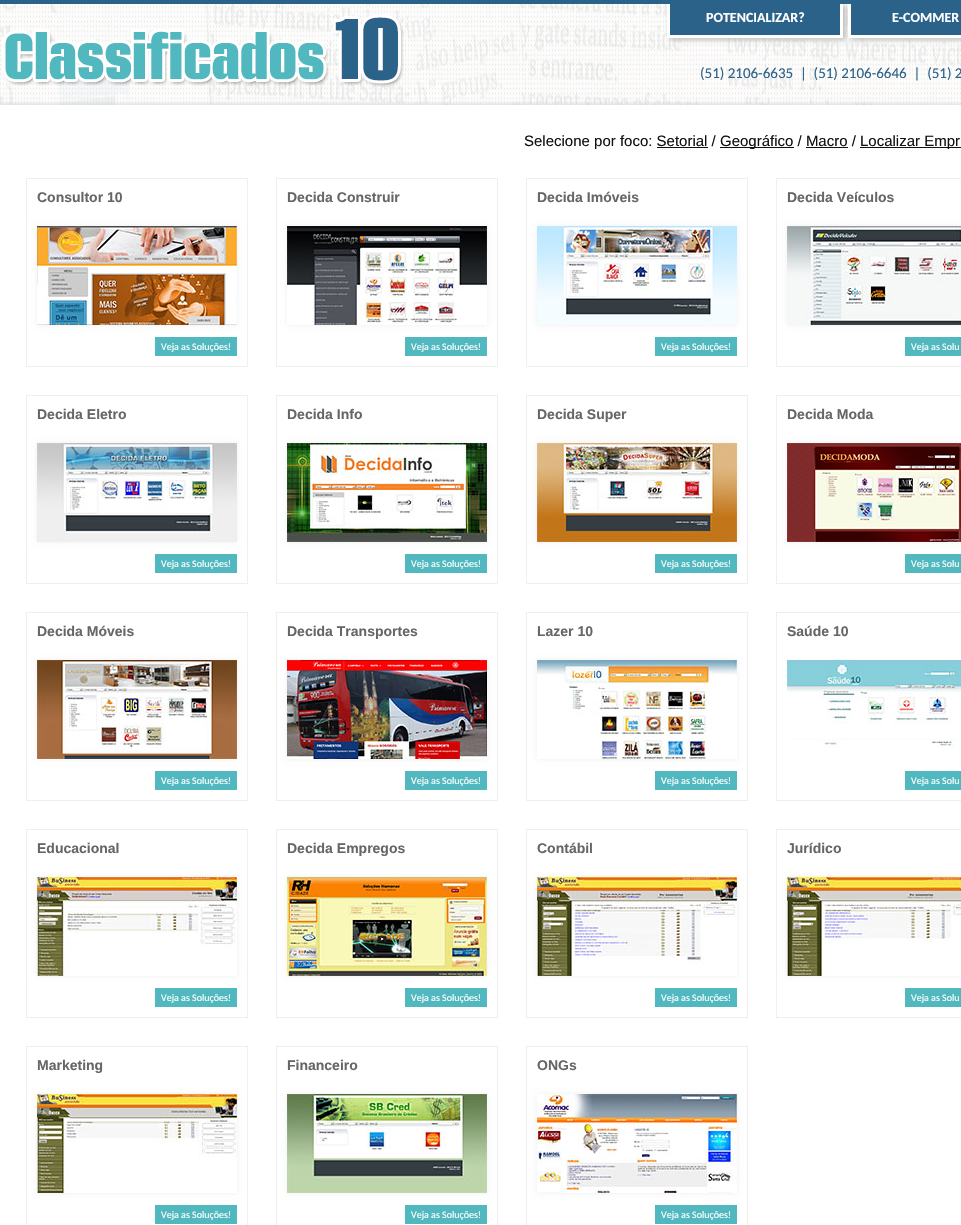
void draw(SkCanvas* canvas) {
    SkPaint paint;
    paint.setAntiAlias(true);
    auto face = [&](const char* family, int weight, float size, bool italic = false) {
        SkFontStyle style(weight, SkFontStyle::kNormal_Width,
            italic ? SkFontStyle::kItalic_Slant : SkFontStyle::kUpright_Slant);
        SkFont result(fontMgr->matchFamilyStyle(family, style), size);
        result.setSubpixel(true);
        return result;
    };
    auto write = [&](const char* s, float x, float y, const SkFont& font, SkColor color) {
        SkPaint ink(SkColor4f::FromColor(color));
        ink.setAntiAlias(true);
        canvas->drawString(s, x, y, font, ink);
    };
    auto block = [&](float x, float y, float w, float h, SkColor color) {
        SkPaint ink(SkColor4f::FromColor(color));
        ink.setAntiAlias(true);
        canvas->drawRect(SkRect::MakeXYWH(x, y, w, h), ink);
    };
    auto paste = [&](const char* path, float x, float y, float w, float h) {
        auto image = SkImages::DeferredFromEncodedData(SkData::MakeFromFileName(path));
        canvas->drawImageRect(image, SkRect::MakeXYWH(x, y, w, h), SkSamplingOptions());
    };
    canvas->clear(SK_ColorWHITE);
    paste("pic1.png", 0, 4, 961, 101);
    paint.setColor(SkColorSetRGB(191, 189, 189));
    paint.setMaskFilter(SkMaskFilter::MakeBlur(kNormal_SkBlurStyle, 2.5f));
    canvas->drawRect(SkRect::MakeXYWH(670, 5, 176, 35), paint);
    paint.setMaskFilter(nullptr);
    block(840, 3, 3, 35, SK_ColorWHITE);
    block(667, 35, 176, 3, SK_ColorWHITE);
    block(667, 3, 3, 35, SK_ColorWHITE);
    paint.setMaskFilter(SkMaskFilter::MakeBlur(kNormal_SkBlurStyle, 2.5f));
    canvas->drawRect(SkRect::MakeXYWH(851, 5, 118, 35), paint);
    paint.setMaskFilter(nullptr);
    block(848, 35, 113, 3, SK_ColorWHITE);
    block(848, 3, 3, 35, SK_ColorWHITE);
    block(0, 0, 961, 4, SkColorSetRGB(42, 98, 138));
    paste("pic2.png", 2, 15, 402, 72);
    block(670, 4, 170, 31, SkColorSetRGB(42, 98, 138));
    auto kFont1 = face("Carlito", 700, 14);
    write("POTENCIALIZAR?", 706, 22, kFont1, SK_ColorWHITE);
    block(851, 4, 110, 31, SkColorSetRGB(42, 98, 138));
    write("E-COMMER", 892, 22, kFont1, SK_ColorWHITE);
    auto kFont2 = face("Carlito", 400, 15);
    write("(51) 2106-6635  |  (51) 2106-6646  |  (51) 2", 700, 78, kFont2, SkColorSetRGB(42, 98, 138));
    paint.setColor(SkColorSetRGB(204, 204, 204));
    paint.setMaskFilter(SkMaskFilter::MakeBlur(kNormal_SkBlurStyle, 2.5f));
    canvas->drawRect(SkRect::MakeXYWH(0, 105, 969, 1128), paint);
    paint.setMaskFilter(nullptr);
    block(0, 105, 961, 1120, SK_ColorWHITE);
    auto kFont3 = face("Liberation Sans", 400, 15);
    write("Selecione por foco: Setorial /", 524, 146, kFont3, SkColorSetRGB(17, 17, 17));
    block(720, 147, 74, 1, SkColorSetRGB(17, 17, 17));
    write("Geográfico / Macro /", 720, 146, kFont3, SkColorSetRGB(17, 17, 17));
    block(860, 147, 101, 1, SkColorSetRGB(17, 17, 17));
    write("Localizar Empr", 860, 146, kFont3, SkColorSetRGB(17, 17, 17));
    block(657, 147, 51, 1, SkColorSetRGB(17, 17, 17));
    block(806, 147, 42, 1, SkColorSetRGB(17, 17, 17));
    paint.setStyle(SkPaint::kStroke_Style);
    paint.setStrokeWidth(1);
    paint.setColor(SkColorSetRGB(239, 239, 239));
    canvas->drawRect(SkRect::MakeXYWH(26.5f, 178.5f, 221, 188), paint);
    auto kFont4 = face("Liberation Sans", 700, 14);
    write("Consultor 10", 37, 202, kFont4, SkColorSetRGB(102, 102, 102));
    paint.setStyle(SkPaint::kFill_Style);
    paint.setMaskFilter(SkMaskFilter::MakeBlur(kNormal_SkBlurStyle, 2.5f));
    canvas->drawRect(SkRect::MakeXYWH(37, 226, 200, 99), paint);
    paint.setMaskFilter(nullptr);
    paste("pic3.png", 37, 226, 200, 99);
    block(155, 337, 82, 19, SkColorSetRGB(80, 184, 190));
    auto kFont5 = face("Carlito", 400, 10);
    write("Veja as Soluções!", 161, 350, kFont5, SK_ColorWHITE);
    paint.setStyle(SkPaint::kStroke_Style);
    canvas->drawRect(SkRect::MakeXYWH(276.5f, 178.5f, 221, 188), paint);
    write("Decida Construir", 287, 202, kFont4, SkColorSetRGB(102, 102, 102));
    paint.setStyle(SkPaint::kFill_Style);
    paint.setMaskFilter(SkMaskFilter::MakeBlur(kNormal_SkBlurStyle, 2.5f));
    canvas->drawRect(SkRect::MakeXYWH(287, 226, 200, 99), paint);
    paint.setMaskFilter(nullptr);
    paste("pic4.png", 287, 226, 200, 99);
    block(405, 337, 82, 19, SkColorSetRGB(80, 184, 190));
    write("Veja as Soluções!", 411, 350, kFont5, SK_ColorWHITE);
    paint.setStyle(SkPaint::kStroke_Style);
    canvas->drawRect(SkRect::MakeXYWH(526.5f, 178.5f, 221, 188), paint);
    write("Decida Imóveis", 537, 202, kFont4, SkColorSetRGB(102, 102, 102));
    paint.setStyle(SkPaint::kFill_Style);
    paint.setMaskFilter(SkMaskFilter::MakeBlur(kNormal_SkBlurStyle, 2.5f));
    canvas->drawRect(SkRect::MakeXYWH(537, 226, 200, 99), paint);
    paint.setMaskFilter(nullptr);
    paste("pic5.png", 537, 226, 200, 99);
    block(655, 337, 82, 19, SkColorSetRGB(80, 184, 190));
    write("Veja as Soluções!", 661, 350, kFont5, SK_ColorWHITE);
    paint.setStyle(SkPaint::kStroke_Style);
    canvas->drawRect(SkRect::MakeXYWH(776.5f, 178.5f, 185, 188), paint);
    write("Decida Veículos", 787, 202, kFont4, SkColorSetRGB(102, 102, 102));
    paint.setStyle(SkPaint::kFill_Style);
    paint.setMaskFilter(SkMaskFilter::MakeBlur(kNormal_SkBlurStyle, 2.5f));
    canvas->drawRect(SkRect::MakeXYWH(787, 226, 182, 99), paint);
    paint.setMaskFilter(nullptr);
    paste("pic6.png", 787, 226, 174, 99);
    block(905, 337, 56, 19, SkColorSetRGB(80, 184, 190));
    write("Veja as Solu", 911, 350, kFont5, SK_ColorWHITE);
    paint.setStyle(SkPaint::kStroke_Style);
    canvas->drawRect(SkRect::MakeXYWH(26.5f, 395.5f, 221, 188), paint);
    write("Decida Eletro", 37, 419, kFont4, SkColorSetRGB(102, 102, 102));
    paint.setStyle(SkPaint::kFill_Style);
    paint.setMaskFilter(SkMaskFilter::MakeBlur(kNormal_SkBlurStyle, 2.5f));
    canvas->drawRect(SkRect::MakeXYWH(37, 443, 200, 99), paint);
    paint.setMaskFilter(nullptr);
    paste("pic7.png", 37, 443, 200, 99);
    block(155, 554, 82, 19, SkColorSetRGB(80, 184, 190));
    write("Veja as Soluções!", 161, 567, kFont5, SK_ColorWHITE);
    paint.setStyle(SkPaint::kStroke_Style);
    canvas->drawRect(SkRect::MakeXYWH(276.5f, 395.5f, 221, 188), paint);
    write("Decida Info", 287, 419, kFont4, SkColorSetRGB(102, 102, 102));
    paint.setStyle(SkPaint::kFill_Style);
    paint.setMaskFilter(SkMaskFilter::MakeBlur(kNormal_SkBlurStyle, 2.5f));
    canvas->drawRect(SkRect::MakeXYWH(287, 443, 200, 99), paint);
    paint.setMaskFilter(nullptr);
    paste("pic8.png", 287, 443, 200, 99);
    block(405, 554, 82, 19, SkColorSetRGB(80, 184, 190));
    write("Veja as Soluções!", 411, 567, kFont5, SK_ColorWHITE);
    paint.setStyle(SkPaint::kStroke_Style);
    canvas->drawRect(SkRect::MakeXYWH(526.5f, 395.5f, 221, 188), paint);
    write("Decida Super", 537, 419, kFont4, SkColorSetRGB(102, 102, 102));
    paint.setStyle(SkPaint::kFill_Style);
    paint.setMaskFilter(SkMaskFilter::MakeBlur(kNormal_SkBlurStyle, 2.5f));
    canvas->drawRect(SkRect::MakeXYWH(537, 443, 200, 99), paint);
    paint.setMaskFilter(nullptr);
    paste("pic9.png", 537, 443, 200, 99);
    block(655, 554, 82, 19, SkColorSetRGB(80, 184, 190));
    write("Veja as Soluções!", 661, 567, kFont5, SK_ColorWHITE);
    paint.setStyle(SkPaint::kStroke_Style);
    canvas->drawRect(SkRect::MakeXYWH(776.5f, 395.5f, 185, 188), paint);
    write("Decida Moda", 787, 419, kFont4, SkColorSetRGB(102, 102, 102));
    paint.setStyle(SkPaint::kFill_Style);
    paint.setMaskFilter(SkMaskFilter::MakeBlur(kNormal_SkBlurStyle, 2.5f));
    canvas->drawRect(SkRect::MakeXYWH(787, 443, 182, 99), paint);
    paint.setMaskFilter(nullptr);
    paste("pic10.png", 787, 443, 174, 99);
    block(905, 554, 56, 19, SkColorSetRGB(80, 184, 190));
    write("Veja as Solu", 911, 567, kFont5, SK_ColorWHITE);
    paint.setStyle(SkPaint::kStroke_Style);
    canvas->drawRect(SkRect::MakeXYWH(26.5f, 612.5f, 221, 188), paint);
    write("Decida Móveis", 37, 636, kFont4, SkColorSetRGB(102, 102, 102));
    paint.setStyle(SkPaint::kFill_Style);
    paint.setMaskFilter(SkMaskFilter::MakeBlur(kNormal_SkBlurStyle, 2.5f));
    canvas->drawRect(SkRect::MakeXYWH(37, 660, 200, 99), paint);
    paint.setMaskFilter(nullptr);
    paste("pic11.png", 37, 660, 200, 99);
    block(155, 771, 82, 19, SkColorSetRGB(80, 184, 190));
    write("Veja as Soluções!", 161, 784, kFont5, SK_ColorWHITE);
    paint.setStyle(SkPaint::kStroke_Style);
    canvas->drawRect(SkRect::MakeXYWH(276.5f, 612.5f, 221, 188), paint);
    write("Decida Transportes", 287, 636, kFont4, SkColorSetRGB(102, 102, 102));
    paint.setStyle(SkPaint::kFill_Style);
    paint.setMaskFilter(SkMaskFilter::MakeBlur(kNormal_SkBlurStyle, 2.5f));
    canvas->drawRect(SkRect::MakeXYWH(287, 660, 200, 99), paint);
    paint.setMaskFilter(nullptr);
    paste("pic12.png", 287, 660, 200, 99);
    block(405, 771, 82, 19, SkColorSetRGB(80, 184, 190));
    write("Veja as Soluções!", 411, 784, kFont5, SK_ColorWHITE);
    paint.setStyle(SkPaint::kStroke_Style);
    canvas->drawRect(SkRect::MakeXYWH(526.5f, 612.5f, 221, 188), paint);
    write("Lazer 10", 537, 636, kFont4, SkColorSetRGB(102, 102, 102));
    paint.setStyle(SkPaint::kFill_Style);
    paint.setMaskFilter(SkMaskFilter::MakeBlur(kNormal_SkBlurStyle, 2.5f));
    canvas->drawRect(SkRect::MakeXYWH(537, 660, 200, 99), paint);
    paint.setMaskFilter(nullptr);
    paste("pic13.png", 537, 660, 200, 99);
    block(655, 771, 82, 19, SkColorSetRGB(80, 184, 190));
    write("Veja as Soluções!", 661, 784, kFont5, SK_ColorWHITE);
    paint.setStyle(SkPaint::kStroke_Style);
    canvas->drawRect(SkRect::MakeXYWH(776.5f, 612.5f, 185, 188), paint);
    write("Saúde 10", 787, 636, kFont4, SkColorSetRGB(102, 102, 102));
    paste("pic14.png", 787, 660, 174, 88);
    block(905, 771, 56, 19, SkColorSetRGB(80, 184, 190));
    write("Veja as Solu", 911, 784, kFont5, SK_ColorWHITE);
    canvas->drawRect(SkRect::MakeXYWH(26.5f, 829.5f, 221, 188), paint);
    write("Educacional", 37, 853, kFont4, SkColorSetRGB(102, 102, 102));
    paint.setStyle(SkPaint::kFill_Style);
    paint.setMaskFilter(SkMaskFilter::MakeBlur(kNormal_SkBlurStyle, 2.5f));
    canvas->drawRect(SkRect::MakeXYWH(37, 877, 200, 99), paint);
    paint.setMaskFilter(nullptr);
    paste("pic15.png", 37, 877, 200, 99);
    block(155, 988, 82, 19, SkColorSetRGB(80, 184, 190));
    write("Veja as Soluções!", 161, 1001, kFont5, SK_ColorWHITE);
    paint.setStyle(SkPaint::kStroke_Style);
    canvas->drawRect(SkRect::MakeXYWH(276.5f, 829.5f, 221, 188), paint);
    write("Decida Empregos", 287, 853, kFont4, SkColorSetRGB(102, 102, 102));
    paint.setStyle(SkPaint::kFill_Style);
    paint.setMaskFilter(SkMaskFilter::MakeBlur(kNormal_SkBlurStyle, 2.5f));
    canvas->drawRect(SkRect::MakeXYWH(287, 877, 200, 99), paint);
    paint.setMaskFilter(nullptr);
    paste("pic16.png", 287, 877, 200, 99);
    block(405, 988, 82, 19, SkColorSetRGB(80, 184, 190));
    write("Veja as Soluções!", 411, 1001, kFont5, SK_ColorWHITE);
    paint.setStyle(SkPaint::kStroke_Style);
    canvas->drawRect(SkRect::MakeXYWH(526.5f, 829.5f, 221, 188), paint);
    write("Contábil", 537, 853, kFont4, SkColorSetRGB(102, 102, 102));
    paint.setStyle(SkPaint::kFill_Style);
    paint.setMaskFilter(SkMaskFilter::MakeBlur(kNormal_SkBlurStyle, 2.5f));
    canvas->drawRect(SkRect::MakeXYWH(537, 877, 200, 99), paint);
    paint.setMaskFilter(nullptr);
    paste("pic17.png", 537, 877, 200, 99);
    block(655, 988, 82, 19, SkColorSetRGB(80, 184, 190));
    write("Veja as Soluções!", 661, 1001, kFont5, SK_ColorWHITE);
    paint.setStyle(SkPaint::kStroke_Style);
    canvas->drawRect(SkRect::MakeXYWH(776.5f, 829.5f, 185, 188), paint);
    write("Jurídico", 787, 853, kFont4, SkColorSetRGB(102, 102, 102));
    paint.setStyle(SkPaint::kFill_Style);
    paint.setMaskFilter(SkMaskFilter::MakeBlur(kNormal_SkBlurStyle, 2.5f));
    canvas->drawRect(SkRect::MakeXYWH(787, 877, 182, 99), paint);
    paint.setMaskFilter(nullptr);
    paste("pic18.png", 787, 877, 174, 99);
    block(905, 988, 56, 19, SkColorSetRGB(80, 184, 190));
    write("Veja as Solu", 911, 1001, kFont5, SK_ColorWHITE);
    paint.setStyle(SkPaint::kStroke_Style);
    canvas->drawRect(SkRect::MakeXYWH(26.5f, 1046.5f, 221, 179), paint);
    write("Marketing", 37, 1070, kFont4, SkColorSetRGB(102, 102, 102));
    paint.setStyle(SkPaint::kFill_Style);
    paint.setMaskFilter(SkMaskFilter::MakeBlur(kNormal_SkBlurStyle, 2.5f));
    canvas->drawRect(SkRect::MakeXYWH(37, 1094, 200, 99), paint);
    paint.setMaskFilter(nullptr);
    paste("pic19.png", 37, 1094, 200, 99);
    block(155, 1205, 82, 19, SkColorSetRGB(80, 184, 190));
    write("Veja as Soluções!", 161, 1218, kFont5, SK_ColorWHITE);
    paint.setStyle(SkPaint::kStroke_Style);
    canvas->drawRect(SkRect::MakeXYWH(276.5f, 1046.5f, 221, 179), paint);
    write("Financeiro", 287, 1070, kFont4, SkColorSetRGB(102, 102, 102));
    paint.setStyle(SkPaint::kFill_Style);
    paint.setMaskFilter(SkMaskFilter::MakeBlur(kNormal_SkBlurStyle, 2.5f));
    canvas->drawRect(SkRect::MakeXYWH(287, 1094, 200, 99), paint);
    paint.setMaskFilter(nullptr);
    paste("pic20.png", 287, 1094, 200, 99);
    block(405, 1205, 82, 19, SkColorSetRGB(80, 184, 190));
    write("Veja as Soluções!", 411, 1218, kFont5, SK_ColorWHITE);
    paint.setStyle(SkPaint::kStroke_Style);
    canvas->drawRect(SkRect::MakeXYWH(526.5f, 1046.5f, 221, 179), paint);
    write("ONGs", 537, 1070, kFont4, SkColorSetRGB(102, 102, 102));
    paint.setStyle(SkPaint::kFill_Style);
    paint.setMaskFilter(SkMaskFilter::MakeBlur(kNormal_SkBlurStyle, 2.5f));
    canvas->drawRect(SkRect::MakeXYWH(537, 1094, 200, 99), paint);
    paint.setMaskFilter(nullptr);
    paste("pic21.png", 537, 1094, 200, 99);
    block(655, 1205, 82, 19, SkColorSetRGB(80, 184, 190));
    write("Veja as Soluções!", 661, 1218, kFont5, SK_ColorWHITE);
}
